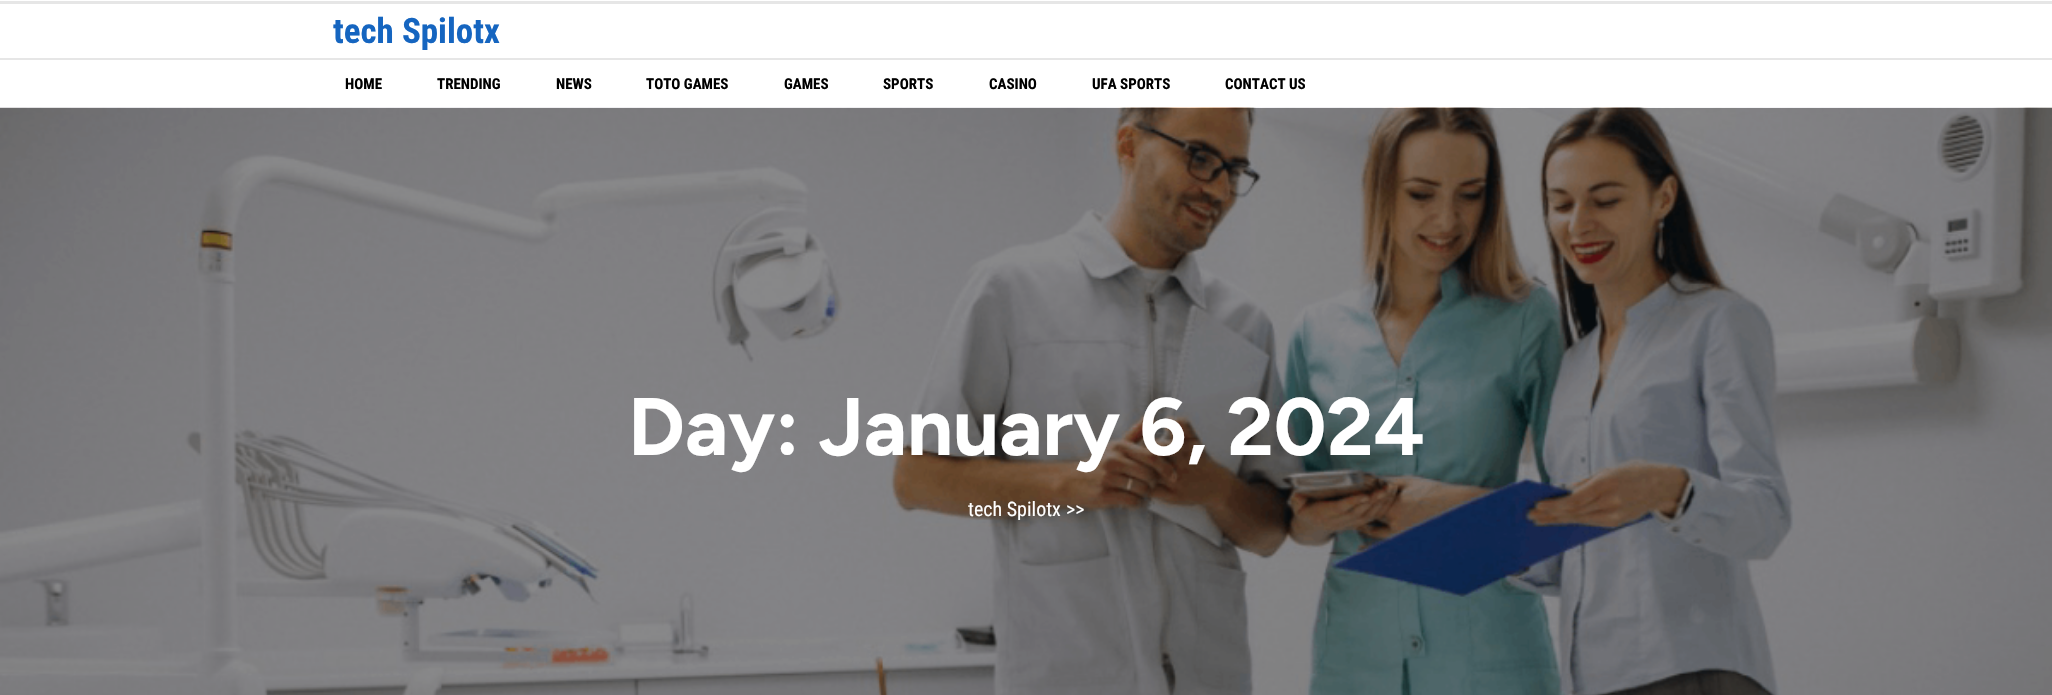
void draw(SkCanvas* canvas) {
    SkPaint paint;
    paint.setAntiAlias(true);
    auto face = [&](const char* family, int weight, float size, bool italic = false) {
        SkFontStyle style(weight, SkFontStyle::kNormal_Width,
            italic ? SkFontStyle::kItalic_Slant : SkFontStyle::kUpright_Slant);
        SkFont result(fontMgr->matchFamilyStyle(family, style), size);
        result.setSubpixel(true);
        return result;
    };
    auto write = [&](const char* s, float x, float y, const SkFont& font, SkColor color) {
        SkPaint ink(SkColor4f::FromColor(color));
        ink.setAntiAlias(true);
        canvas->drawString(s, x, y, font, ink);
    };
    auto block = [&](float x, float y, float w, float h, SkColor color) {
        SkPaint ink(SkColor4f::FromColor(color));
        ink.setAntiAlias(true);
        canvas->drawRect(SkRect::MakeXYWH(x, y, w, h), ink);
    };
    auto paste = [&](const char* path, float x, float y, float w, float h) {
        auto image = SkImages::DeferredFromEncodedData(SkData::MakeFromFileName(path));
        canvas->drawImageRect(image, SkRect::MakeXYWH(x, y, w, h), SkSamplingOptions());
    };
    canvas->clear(SK_ColorWHITE);
    block(0, 1, 2052, 3, SkColorSetRGB(230, 230, 230));
    block(0, 58, 2052, 2, SkColorSetRGB(230, 230, 230));
    auto kFont1 = face("Roboto Condensed", 700, 35);
    write("tech Spilotx", 333, 43, kFont1, SkColorSetRGB(21, 101, 192));
    auto kFont2 = face("Roboto Condensed", 700, 15);
    write("HOME", 345, 89, kFont2, SK_ColorBLACK);
    write("TRENDING", 437, 89, kFont2, SK_ColorBLACK);
    write("NEWS", 556, 89, kFont2, SK_ColorBLACK);
    write("TOTO GAMES", 646, 89, kFont2, SK_ColorBLACK);
    write("GAMES", 784, 89, kFont2, SK_ColorBLACK);
    write("SPORTS", 883, 89, kFont2, SK_ColorBLACK);
    write("CASINO", 989, 89, kFont2, SK_ColorBLACK);
    write("UFA SPORTS", 1092, 89, kFont2, SK_ColorBLACK);
    write("CONTACT US", 1225, 89, kFont2, SK_ColorBLACK);
    paste("pic1.png", 0, 107, 2052, 588);
    auto kFont3 = face("Figtree", 700, 81.25f);
    write("Day: January 6, 2024", 628, 455, kFont3, SK_ColorWHITE);
    auto kFont4 = face("Roboto Condensed", 400, 20);
    write("tech Spilotx", 968, 516, kFont4, SK_ColorWHITE);
    write(">>", 1066, 516, kFont4, SK_ColorWHITE);
}
